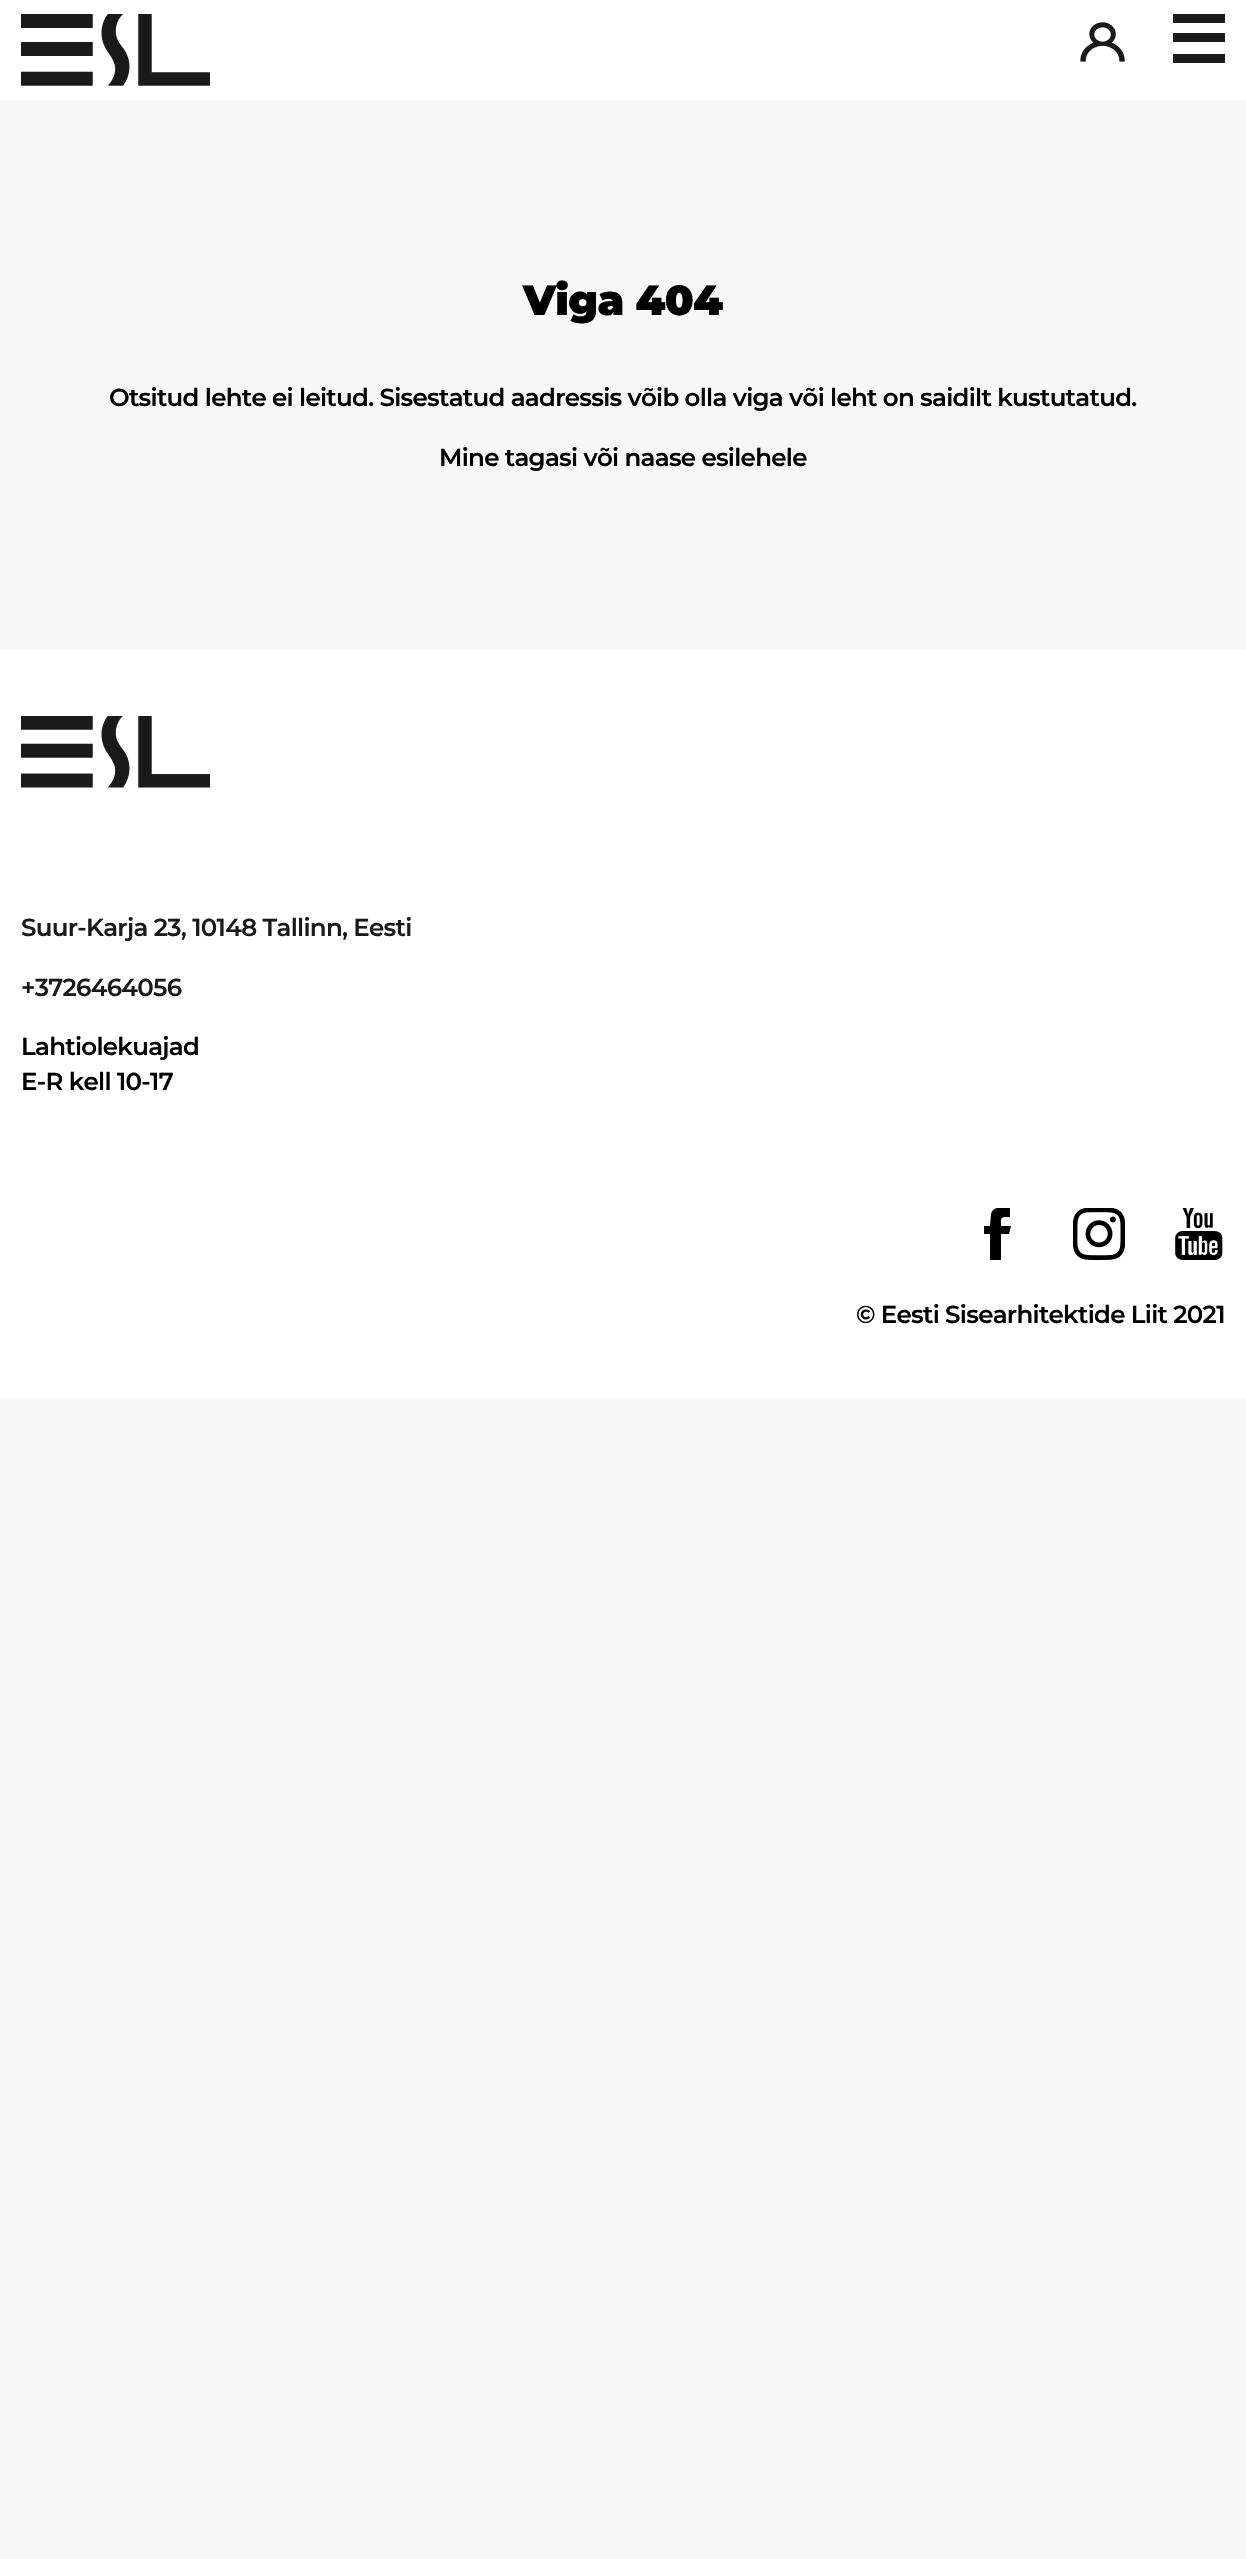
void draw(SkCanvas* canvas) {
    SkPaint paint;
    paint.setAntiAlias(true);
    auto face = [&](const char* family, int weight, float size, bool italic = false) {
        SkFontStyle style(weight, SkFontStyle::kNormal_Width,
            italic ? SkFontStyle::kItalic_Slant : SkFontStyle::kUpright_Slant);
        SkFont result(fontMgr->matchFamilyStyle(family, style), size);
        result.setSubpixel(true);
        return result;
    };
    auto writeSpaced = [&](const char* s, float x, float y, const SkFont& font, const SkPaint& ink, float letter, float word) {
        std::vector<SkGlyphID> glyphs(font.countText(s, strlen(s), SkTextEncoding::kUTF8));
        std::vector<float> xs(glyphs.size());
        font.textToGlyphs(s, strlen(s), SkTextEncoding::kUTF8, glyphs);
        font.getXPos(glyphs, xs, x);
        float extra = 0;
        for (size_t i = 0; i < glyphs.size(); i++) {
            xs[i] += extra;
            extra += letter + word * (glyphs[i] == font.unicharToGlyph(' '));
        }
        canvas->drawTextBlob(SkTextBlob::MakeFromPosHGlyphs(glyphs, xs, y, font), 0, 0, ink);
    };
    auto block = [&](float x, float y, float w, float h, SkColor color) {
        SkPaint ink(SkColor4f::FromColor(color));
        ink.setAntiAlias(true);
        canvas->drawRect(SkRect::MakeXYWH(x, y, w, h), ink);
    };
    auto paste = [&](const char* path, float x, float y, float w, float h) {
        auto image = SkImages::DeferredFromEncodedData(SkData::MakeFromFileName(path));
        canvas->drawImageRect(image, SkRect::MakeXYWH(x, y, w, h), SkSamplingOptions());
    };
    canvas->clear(SkColorSetRGB(247, 247, 247));
    block(0, 0, 1246, 100, SK_ColorWHITE);
    paste("pic1.png", 21, 14, 189, 72);
    paste("pic2.png", 1080, 22, 45, 40);
    block(1173, 14, 52, 9, SkColorSetRGB(26, 26, 26));
    block(1173, 33, 52, 9, SkColorSetRGB(26, 26, 26));
    block(1173, 54, 52, 9, SkColorSetRGB(26, 26, 26));
    auto kFont1 = face("Montserrat", 900, 42);
    paint.setColor(SK_ColorBLACK);
    writeSpaced("Viga 404", 523, 315, kFont1, paint, -0.7f, 0);
    auto kFont2 = face("Montserrat", 600, 24.5f);
    writeSpaced("Otsitud lehte ei leitud. Sisestatud aadressis võib olla viga või leht on saidilt kustutatud.", 109, 406, kFont2, paint, -0.7f, 0);
    writeSpaced("Mine tagasi või naase esilehele", 439, 466, kFont2, paint, -0.7f, 0);
    block(0, 649, 1246, 749, SK_ColorWHITE);
    paste("pic3.png", 21, 716, 189, 72);
    paint.setColor(SkColorSetRGB(26, 26, 26));
    writeSpaced("Suur-Karja 23, 10148 Tallinn, Eesti", 21, 936, kFont2, paint, -0.7f, 0);
    writeSpaced("+3726464056", 21, 996, kFont2, paint, -0.7f, 0);
    paint.setColor(SK_ColorBLACK);
    writeSpaced("Lahtiolekuajad", 21, 1055, kFont2, paint, -0.7f, 0);
    writeSpaced("E-R kell 10-17", 21, 1090, kFont2, paint, -0.7f, 0);
    canvas->save();
    canvas->clipRect(SkRect::MakeXYWH(971, 1208, 53, 52));
    paint.setColor(SkColorSetRGB(1, 0, 2));
    canvas->drawPath(SkPathBuilder().moveTo(1011, 1226).lineTo(1001, 1226).cubicTo(1001, 1217, 1000, 1217, 1010, 1217).lineTo(1010, 1208).cubicTo(1004, 1208, 993, 1205, 991, 1214).lineTo(990, 1226).lineTo(984, 1226).lineTo(984, 1234).lineTo(990, 1234).lineTo(990, 1260).lineTo(1001, 1260).lineTo(1001, 1234).lineTo(1009, 1234).close().detach(), paint);
    canvas->restore();
    paste("pic4.png", 1073, 1208, 52, 52);
    paste("pic5.png", 1175, 1208, 48, 52);
    paint.setColor(SK_ColorBLACK);
    writeSpaced("© Eesti Sisearhitektide Liit 2021", 856, 1323, kFont2, paint, -0.7f, 0);
}
